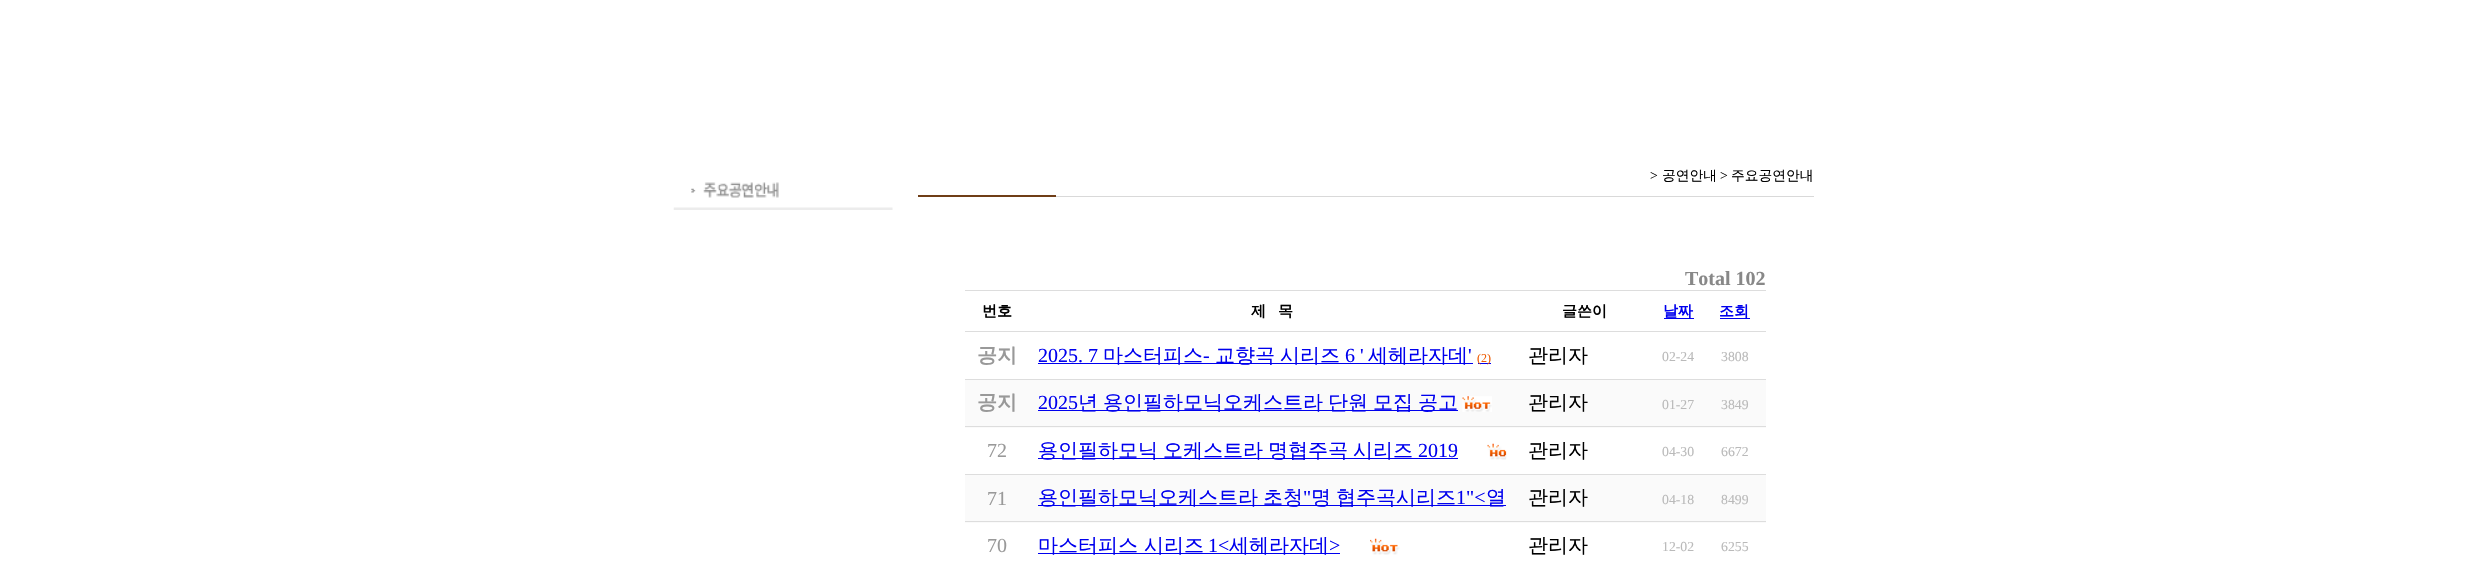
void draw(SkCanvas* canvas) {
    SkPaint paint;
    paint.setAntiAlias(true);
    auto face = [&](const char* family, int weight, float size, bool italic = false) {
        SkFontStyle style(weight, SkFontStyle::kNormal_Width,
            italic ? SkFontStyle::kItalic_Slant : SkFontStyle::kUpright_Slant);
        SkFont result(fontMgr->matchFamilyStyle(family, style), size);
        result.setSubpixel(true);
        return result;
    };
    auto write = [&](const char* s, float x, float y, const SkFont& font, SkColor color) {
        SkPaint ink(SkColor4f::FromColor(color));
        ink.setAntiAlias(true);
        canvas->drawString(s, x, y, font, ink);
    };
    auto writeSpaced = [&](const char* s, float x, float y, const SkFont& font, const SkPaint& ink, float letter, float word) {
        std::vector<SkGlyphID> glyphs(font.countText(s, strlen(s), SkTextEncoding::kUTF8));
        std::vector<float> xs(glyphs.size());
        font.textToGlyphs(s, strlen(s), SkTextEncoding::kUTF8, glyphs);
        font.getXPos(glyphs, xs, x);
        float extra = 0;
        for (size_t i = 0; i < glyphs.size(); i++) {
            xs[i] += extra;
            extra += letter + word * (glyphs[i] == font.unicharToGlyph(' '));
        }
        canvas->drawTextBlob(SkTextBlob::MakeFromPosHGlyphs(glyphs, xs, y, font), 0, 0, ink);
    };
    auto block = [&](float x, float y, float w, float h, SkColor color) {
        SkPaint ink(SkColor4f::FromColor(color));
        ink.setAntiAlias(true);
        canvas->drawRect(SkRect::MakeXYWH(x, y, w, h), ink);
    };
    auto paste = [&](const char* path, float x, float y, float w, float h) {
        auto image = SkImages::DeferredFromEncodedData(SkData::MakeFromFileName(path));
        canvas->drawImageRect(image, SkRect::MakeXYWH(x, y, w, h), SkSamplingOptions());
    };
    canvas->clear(SK_ColorWHITE);
    paste("pic1.png", 673, 182, 220, 28);
    auto kFont1 = face("Liberation Serif", 400, 13.75f);
    write(">", 1650, 180, kFont1, SK_ColorBLACK);
    auto kFont2 = face("WenQuanYi Zen Hei", 500, 13.75f);
    write("공연안내", 1662, 180, kFont2, SK_ColorBLACK);
    write(">", 1720, 180, kFont1, SK_ColorBLACK);
    write("주요공연안내", 1731, 180, kFont2, SK_ColorBLACK);
    block(918, 195, 138, 2, SkColorSetRGB(111, 62, 23));
    block(1056, 196, 758, 1, SkColorSetRGB(217, 217, 217));
    auto kFont3 = face("Liberation Serif", 700, 20);
    write("Total 102", 1685, 285, kFont3, SkColorSetRGB(136, 136, 136));
    block(965, 290, 801, 1, SkColorSetRGB(221, 221, 221));
    block(965, 331, 801, 1, SkColorSetRGB(221, 221, 221));
    auto kFont4 = face("WenQuanYi Zen Hei", 700, 15);
    write("번호", 982, 316, kFont4, SK_ColorBLACK);
    write("제", 1251, 316, kFont4, SK_ColorBLACK);
    write("목", 1278, 316, kFont4, SK_ColorBLACK);
    write("글쓴이", 1562, 316, kFont4, SK_ColorBLACK);
    block(1664, 318, 30, 1, SkColorSetRGB(0, 0, 238));
    write("날짜", 1663, 316, kFont4, SkColorSetRGB(0, 0, 238));
    block(1720, 318, 30, 1, SkColorSetRGB(0, 0, 238));
    write("조회", 1719, 316, kFont4, SkColorSetRGB(0, 0, 238));
    block(965, 379, 63, 1, SkColorSetRGB(221, 221, 221));
    auto kFont5 = face("WenQuanYi Zen Hei", 700, 20);
    write("공지", 977, 362, kFont5, SkColorSetRGB(153, 153, 153));
    auto kFont6 = face("Liberation Serif", 400, 20);
    write("2025. 7", 1038, 362, kFont6, SkColorSetRGB(0, 0, 238));
    block(1038, 363, 435, 1, SkColorSetRGB(0, 0, 238));
    auto kFont7 = face("WenQuanYi Zen Hei", 500, 20);
    write("마스터피스", 1103, 362, kFont7, SkColorSetRGB(0, 0, 238));
    write("교향곡", 1215, 362, kFont7, SkColorSetRGB(0, 0, 238));
    write("시리즈", 1280, 362, kFont7, SkColorSetRGB(0, 0, 238));
    write("6 '", 1345, 362, kFont6, SkColorSetRGB(0, 0, 238));
    write("세헤라자데", 1368, 362, kFont7, SkColorSetRGB(0, 0, 238));
    write("'", 1468, 362, kFont6, SkColorSetRGB(0, 0, 238));
    write("-", 1203, 362, kFont6, SkColorSetRGB(0, 0, 238));
    block(1478, 363, 13, 1, SkColorSetRGB(0, 0, 238));
    auto kFont8 = face("Liberation Serif", 400, 12);
    write("(2)", 1477, 362, kFont8, SkColorSetRGB(238, 90, 0));
    block(1028, 379, 738, 1, SkColorSetRGB(221, 221, 221));
    write("관리자", 1528, 362, kFont7, SK_ColorBLACK);
    write("02-24", 1662, 361, kFont1, SkColorSetRGB(186, 186, 186));
    write("3808", 1721, 361, kFont1, SkColorSetRGB(186, 186, 186));
    block(965, 380, 801, 48, SkColorSetRGB(250, 250, 250));
    block(965, 426, 63, 1, SkColorSetRGB(221, 221, 221));
    write("공지", 977, 409, kFont5, SkColorSetRGB(153, 153, 153));
    write("2025", 1038, 409, kFont6, SkColorSetRGB(0, 0, 238));
    block(1038, 410, 420, 1, SkColorSetRGB(0, 0, 238));
    paint.setColor(SkColorSetRGB(0, 0, 238));
    writeSpaced("년 용인필하모닉오케스트라 단원 모집 공고", 1078, 409, kFont7, paint, 0, -1);
    paste("pic2.png", 1462, 396, 30, 16);
    block(1028, 426, 738, 1, SkColorSetRGB(221, 221, 221));
    write("관리자", 1528, 409, kFont7, SK_ColorBLACK);
    write("01-27", 1662, 409, kFont1, SkColorSetRGB(186, 186, 186));
    write("3849", 1721, 409, kFont1, SkColorSetRGB(186, 186, 186));
    block(965, 474, 63, 1, SkColorSetRGB(221, 221, 221));
    write("72", 987, 457, kFont6, SkColorSetRGB(153, 153, 153));
    block(1038, 458, 420, 1, SkColorSetRGB(0, 0, 238));
    writeSpaced("용인필하모닉 오케스트라 명협주곡 시리즈", 1038, 457, kFont7, paint, 0, -1);
    write("2019", 1418, 457, kFont6, SkColorSetRGB(0, 0, 238));
    paste("pic3.png", 1487, 443, 20, 17);
    block(1028, 474, 738, 1, SkColorSetRGB(221, 221, 221));
    write("관리자", 1528, 457, kFont7, SK_ColorBLACK);
    write("04-30", 1662, 456, kFont1, SkColorSetRGB(186, 186, 186));
    write("6672", 1721, 456, kFont1, SkColorSetRGB(186, 186, 186));
    block(965, 475, 801, 48, SkColorSetRGB(250, 250, 250));
    block(965, 521, 63, 1, SkColorSetRGB(221, 221, 221));
    write("71", 987, 505, kFont6, SkColorSetRGB(153, 153, 153));
    block(1038, 505, 468, 1, SkColorSetRGB(0, 0, 238));
    writeSpaced("용인필하모닉오케스트라 초청", 1038, 504, kFont7, paint, 0, -1);
    write("\"", 1303, 504, kFont6, SkColorSetRGB(0, 0, 238));
    writeSpaced("명 협주곡시리즈", 1311, 504, kFont7, paint, 0, -1);
    write("1\"<", 1456, 504, kFont6, SkColorSetRGB(0, 0, 238));
    write("열", 1486, 504, kFont7, SkColorSetRGB(0, 0, 238));
    block(1028, 521, 738, 1, SkColorSetRGB(221, 221, 221));
    write("관리자", 1528, 504, kFont7, SK_ColorBLACK);
    write("04-18", 1662, 504, kFont1, SkColorSetRGB(186, 186, 186));
    write("8499", 1721, 504, kFont1, SkColorSetRGB(186, 186, 186));
    write("70", 987, 552, kFont6, SkColorSetRGB(153, 153, 153));
    block(1038, 553, 302, 1, SkColorSetRGB(0, 0, 238));
    write("마스터피스 시리즈", 1038, 552, kFont7, SkColorSetRGB(0, 0, 238));
    write("1<", 1208, 552, kFont6, SkColorSetRGB(0, 0, 238));
    write("세헤라자데", 1229, 552, kFont7, SkColorSetRGB(0, 0, 238));
    write(">", 1329, 552, kFont6, SkColorSetRGB(0, 0, 238));
    paste("pic4.png", 1370, 538, 30, 17);
    write("관리자", 1528, 552, kFont7, SK_ColorBLACK);
    write("12-02", 1662, 551, kFont1, SkColorSetRGB(186, 186, 186));
    write("6255", 1721, 551, kFont1, SkColorSetRGB(186, 186, 186));
}
